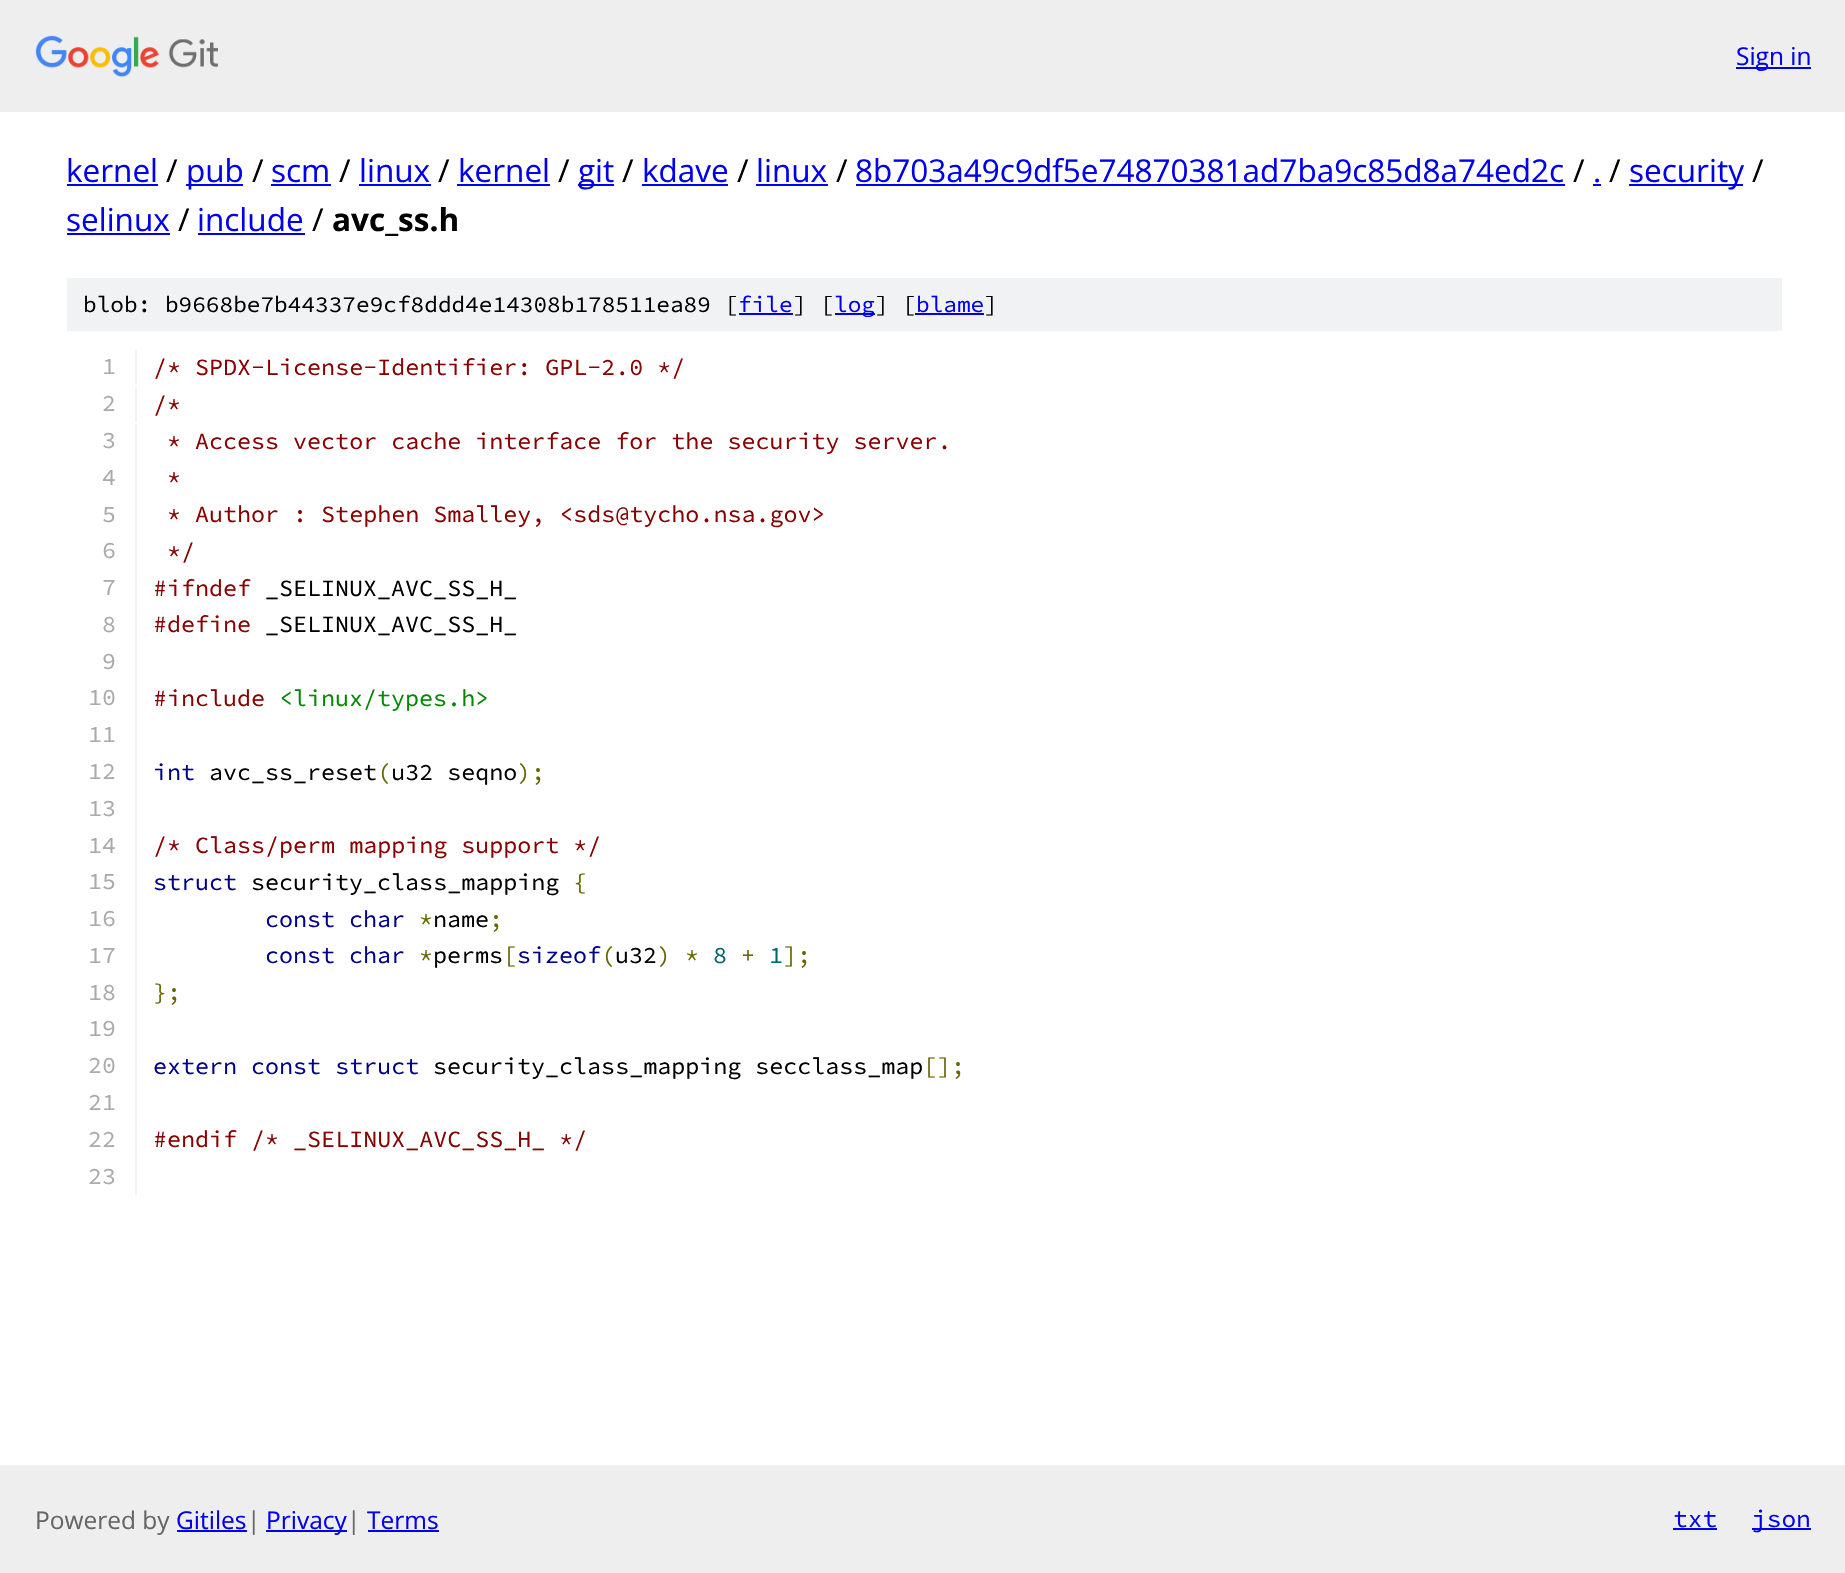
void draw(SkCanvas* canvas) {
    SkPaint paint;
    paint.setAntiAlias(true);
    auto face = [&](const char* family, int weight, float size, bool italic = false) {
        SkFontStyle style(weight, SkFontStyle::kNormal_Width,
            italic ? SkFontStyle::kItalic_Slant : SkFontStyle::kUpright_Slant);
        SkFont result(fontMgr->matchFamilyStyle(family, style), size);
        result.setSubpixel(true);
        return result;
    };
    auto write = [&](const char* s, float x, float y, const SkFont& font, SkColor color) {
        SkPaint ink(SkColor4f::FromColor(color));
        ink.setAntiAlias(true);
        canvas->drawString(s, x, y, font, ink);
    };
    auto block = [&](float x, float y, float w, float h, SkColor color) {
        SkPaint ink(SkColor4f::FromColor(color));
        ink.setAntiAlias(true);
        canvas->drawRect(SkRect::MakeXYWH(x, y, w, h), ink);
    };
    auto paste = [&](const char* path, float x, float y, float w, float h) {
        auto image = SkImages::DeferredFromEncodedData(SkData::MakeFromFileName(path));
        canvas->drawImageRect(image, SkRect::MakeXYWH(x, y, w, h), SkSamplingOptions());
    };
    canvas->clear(SK_ColorWHITE);
    block(0, 0, 1845, 112, SkColorSetRGB(238, 238, 238));
    paste("pic1.png", 35, 35, 183, 42);
    block(1736, 67, 75, 2, SkColorSetRGB(0, 0, 238));
    auto kFont1 = face("Open Sans", 400, 24.5f);
    write("Sign in", 1736, 65, kFont1, SkColorSetRGB(0, 0, 238));
    auto kFont2 = face("Open Sans", 400, 31.5f);
    write("kernel", 66, 182, kFont2, SkColorSetRGB(0, 0, 238));
    block(67, 184, 91, 2, SkColorSetRGB(0, 0, 238));
    write("/", 166, 182, kFont2, SK_ColorBLACK);
    block(186, 184, 57, 2, SkColorSetRGB(0, 0, 238));
    write("pub", 186, 182, kFont2, SkColorSetRGB(0, 0, 238));
    write("/", 252, 182, kFont2, SK_ColorBLACK);
    write("scm", 271, 182, kFont2, SkColorSetRGB(0, 0, 238));
    block(271, 184, 60, 2, SkColorSetRGB(0, 0, 238));
    write("/", 339, 182, kFont2, SK_ColorBLACK);
    write("linux", 359, 182, kFont2, SkColorSetRGB(0, 0, 238));
    block(359, 184, 72, 2, SkColorSetRGB(0, 0, 238));
    write("/", 438, 182, kFont2, SK_ColorBLACK);
    write("kernel", 458, 182, kFont2, SkColorSetRGB(0, 0, 238));
    block(457, 184, 93, 2, SkColorSetRGB(0, 0, 238));
    write("/", 558, 182, kFont2, SK_ColorBLACK);
    block(578, 184, 36, 2, SkColorSetRGB(0, 0, 238));
    write("git", 578, 182, kFont2, SkColorSetRGB(0, 0, 238));
    write("/", 622, 182, kFont2, SK_ColorBLACK);
    write("kdave", 642, 182, kFont2, SkColorSetRGB(0, 0, 238));
    block(642, 184, 86, 2, SkColorSetRGB(0, 0, 238));
    write("/", 737, 182, kFont2, SK_ColorBLACK);
    write("linux", 756, 182, kFont2, SkColorSetRGB(0, 0, 238));
    block(756, 184, 72, 2, SkColorSetRGB(0, 0, 238));
    write("/", 836, 182, kFont2, SK_ColorBLACK);
    write("8b703a49c9df5e74870381ad7ba9c85d8a74ed2c", 855, 182, kFont2, SkColorSetRGB(0, 0, 238));
    block(856, 184, 709, 2, SkColorSetRGB(0, 0, 238));
    write("/", 1573, 182, kFont2, SK_ColorBLACK);
    write(".", 1593, 182, kFont2, SkColorSetRGB(0, 0, 238));
    block(1593, 184, 8, 2, SkColorSetRGB(0, 0, 238));
    write("/", 1609, 182, kFont2, SK_ColorBLACK);
    block(1629, 184, 114, 2, SkColorSetRGB(0, 0, 238));
    write("security", 1629, 182, kFont2, SkColorSetRGB(0, 0, 238));
    write("/", 1752, 182, kFont2, SK_ColorBLACK);
    write("selinux", 66, 231, kFont2, SkColorSetRGB(0, 0, 238));
    block(67, 233, 103, 2, SkColorSetRGB(0, 0, 238));
    write("/", 178, 231, kFont2, SK_ColorBLACK);
    write("include", 197, 231, kFont2, SkColorSetRGB(0, 0, 238));
    block(198, 233, 107, 2, SkColorSetRGB(0, 0, 238));
    write("/", 312, 231, kFont2, SK_ColorBLACK);
    auto kFont3 = face("Open Sans", 700, 31.5f);
    write("avc_ss.h", 332, 231, kFont3, SK_ColorBLACK);
    block(67, 278, 1715, 53, SkColorSetRGB(241, 242, 243));
    auto kFont4 = face("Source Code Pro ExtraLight", 200, 22.75f);
    write("blob: b9668be7b44337e9cf8ddd4e14308b178511ea89 [", 83, 312, kFont4, SK_ColorBLACK);
    write("file", 738, 312, kFont4, SkColorSetRGB(0, 0, 238));
    block(739, 313, 54, 2, SkColorSetRGB(0, 0, 238));
    write("] [", 793, 312, kFont4, SK_ColorBLACK);
    block(835, 313, 40, 2, SkColorSetRGB(0, 0, 238));
    write("log", 834, 312, kFont4, SkColorSetRGB(0, 0, 238));
    write("] [", 875, 312, kFont4, SK_ColorBLACK);
    write("blame", 916, 312, kFont4, SkColorSetRGB(0, 0, 238));
    block(915, 313, 69, 2, SkColorSetRGB(0, 0, 238));
    write("]", 984, 312, kFont4, SK_ColorBLACK);
    block(135, 350, 2, 35, SkColorSetRGB(241, 242, 243));
    auto kFont5 = face("Source Code Pro ExtraLight", 200, 23.35f);
    write("1", 102, 374, kFont5, SkColorSetRGB(170, 170, 170));
    write("/* SPDX-License-Identifier: GPL-2.0 */", 153, 375, kFont5, SkColorSetRGB(136, 0, 0));
    block(135, 387, 2, 35, SkColorSetRGB(241, 242, 243));
    write("2", 102, 411, kFont5, SkColorSetRGB(170, 170, 170));
    write("/*", 153, 412, kFont5, SkColorSetRGB(136, 0, 0));
    block(135, 424, 2, 771, SkColorSetRGB(241, 242, 243));
    write("3", 102, 448, kFont5, SkColorSetRGB(170, 170, 170));
    write("* Access vector cache interface for the security server.", 167, 449, kFont5, SkColorSetRGB(136, 0, 0));
    write("4", 102, 485, kFont5, SkColorSetRGB(170, 170, 170));
    write("*", 167, 485, kFont5, SkColorSetRGB(136, 0, 0));
    write("5", 102, 522, kFont5, SkColorSetRGB(170, 170, 170));
    write("* Author : Stephen Smalley, <sds@tycho.nsa.gov>", 167, 522, kFont5, SkColorSetRGB(136, 0, 0));
    write("6", 102, 558, kFont5, SkColorSetRGB(170, 170, 170));
    write("*/", 167, 559, kFont5, SkColorSetRGB(136, 0, 0));
    write("7", 102, 595, kFont5, SkColorSetRGB(170, 170, 170));
    write("#ifndef", 153, 596, kFont5, SkColorSetRGB(136, 0, 0));
    write("_SELINUX_AVC_SS_H_", 265, 596, kFont5, SK_ColorBLACK);
    write("8", 102, 632, kFont5, SkColorSetRGB(170, 170, 170));
    write("#define", 153, 632, kFont5, SkColorSetRGB(136, 0, 0));
    write("_SELINUX_AVC_SS_H_", 265, 632, kFont5, SK_ColorBLACK);
    write("9", 102, 669, kFont5, SkColorSetRGB(170, 170, 170));
    write("10", 88, 705, kFont5, SkColorSetRGB(170, 170, 170));
    write("#include", 153, 706, kFont5, SkColorSetRGB(136, 0, 0));
    write("<linux/types.h>", 279, 706, kFont5, SkColorSetRGB(0, 136, 0));
    write("11", 88, 742, kFont5, SkColorSetRGB(170, 170, 170));
    write("12", 88, 779, kFont5, SkColorSetRGB(170, 170, 170));
    write("int", 153, 780, kFont5, SkColorSetRGB(0, 0, 136));
    write("avc_ss_reset u32 seqno", 209, 780, kFont5, SK_ColorBLACK);
    write("(", 377, 780, kFont5, SkColorSetRGB(102, 102, 0));
    write(");", 517, 780, kFont5, SkColorSetRGB(102, 102, 0));
    write("13", 88, 816, kFont5, SkColorSetRGB(170, 170, 170));
    write("14", 88, 853, kFont5, SkColorSetRGB(170, 170, 170));
    write("/* Class/perm mapping support */", 153, 853, kFont5, SkColorSetRGB(136, 0, 0));
    write("15", 88, 889, kFont5, SkColorSetRGB(170, 170, 170));
    write("struct", 153, 890, kFont5, SkColorSetRGB(0, 0, 136));
    write("security_class_mapping", 251, 890, kFont5, SK_ColorBLACK);
    write("{", 573, 890, kFont5, SkColorSetRGB(102, 102, 0));
    write("16", 88, 926, kFont5, SkColorSetRGB(170, 170, 170));
    write("const char", 265, 927, kFont5, SkColorSetRGB(0, 0, 136));
    write("*", 419, 927, kFont5, SkColorSetRGB(102, 102, 0));
    write("name", 433, 927, kFont5, SK_ColorBLACK);
    write(";", 489, 927, kFont5, SkColorSetRGB(102, 102, 0));
    write("17", 88, 963, kFont5, SkColorSetRGB(170, 170, 170));
    write("const char", 265, 963, kFont5, SkColorSetRGB(0, 0, 136));
    write("*", 419, 963, kFont5, SkColorSetRGB(102, 102, 0));
    write("perms", 433, 963, kFont5, SK_ColorBLACK);
    write("[", 503, 963, kFont5, SkColorSetRGB(102, 102, 0));
    write("sizeof", 517, 963, kFont5, SkColorSetRGB(0, 0, 136));
    write("(", 601, 963, kFont5, SkColorSetRGB(102, 102, 0));
    write("u32", 615, 963, kFont5, SK_ColorBLACK);
    write(") *", 657, 963, kFont5, SkColorSetRGB(102, 102, 0));
    write("8", 713, 963, kFont5, SkColorSetRGB(0, 102, 102));
    write("+", 741, 963, kFont5, SkColorSetRGB(102, 102, 0));
    write("1", 769, 963, kFont5, SkColorSetRGB(0, 102, 102));
    write("];", 783, 963, kFont5, SkColorSetRGB(102, 102, 0));
    write("18", 88, 1000, kFont5, SkColorSetRGB(170, 170, 170));
    write("};", 153, 1000, kFont5, SkColorSetRGB(102, 102, 0));
    write("19", 88, 1036, kFont5, SkColorSetRGB(170, 170, 170));
    write("20", 88, 1073, kFont5, SkColorSetRGB(170, 170, 170));
    write("extern const struct", 153, 1074, kFont5, SkColorSetRGB(0, 0, 136));
    write("security_class_mapping secclass_map", 433, 1074, kFont5, SK_ColorBLACK);
    write("[];", 923, 1074, kFont5, SkColorSetRGB(102, 102, 0));
    write("21", 88, 1110, kFont5, SkColorSetRGB(170, 170, 170));
    write("22", 88, 1147, kFont5, SkColorSetRGB(170, 170, 170));
    write("#endif /* _SELINUX_AVC_SS_H_ */", 153, 1147, kFont5, SkColorSetRGB(136, 0, 0));
    write("23", 88, 1184, kFont5, SkColorSetRGB(170, 170, 170));
    block(0, 1465, 1845, 108, SkColorSetRGB(238, 238, 238));
    write("Powered by", 35, 1529, kFont1, SkColorSetRGB(102, 102, 102));
    write("Gitiles", 176, 1529, kFont1, SkColorSetRGB(0, 0, 238));
    block(177, 1530, 70, 2, SkColorSetRGB(0, 0, 238));
    write("|", 247, 1529, kFont1, SkColorSetRGB(102, 102, 102));
    block(266, 1530, 81, 2, SkColorSetRGB(0, 0, 238));
    write("Privacy", 266, 1529, kFont1, SkColorSetRGB(0, 0, 238));
    write("|", 347, 1529, kFont1, SkColorSetRGB(102, 102, 102));
    write("Terms", 367, 1529, kFont1, SkColorSetRGB(0, 0, 238));
    block(368, 1530, 71, 2, SkColorSetRGB(0, 0, 238));
    auto kFont6 = face("Source Code Pro ExtraLight", 200, 24.5f);
    write("txt", 1673, 1527, kFont6, SkColorSetRGB(0, 0, 238));
    block(1673, 1528, 44, 2, SkColorSetRGB(0, 0, 238));
    block(1752, 1528, 59, 2, SkColorSetRGB(0, 0, 238));
    write("json", 1752, 1527, kFont6, SkColorSetRGB(0, 0, 238));
}
